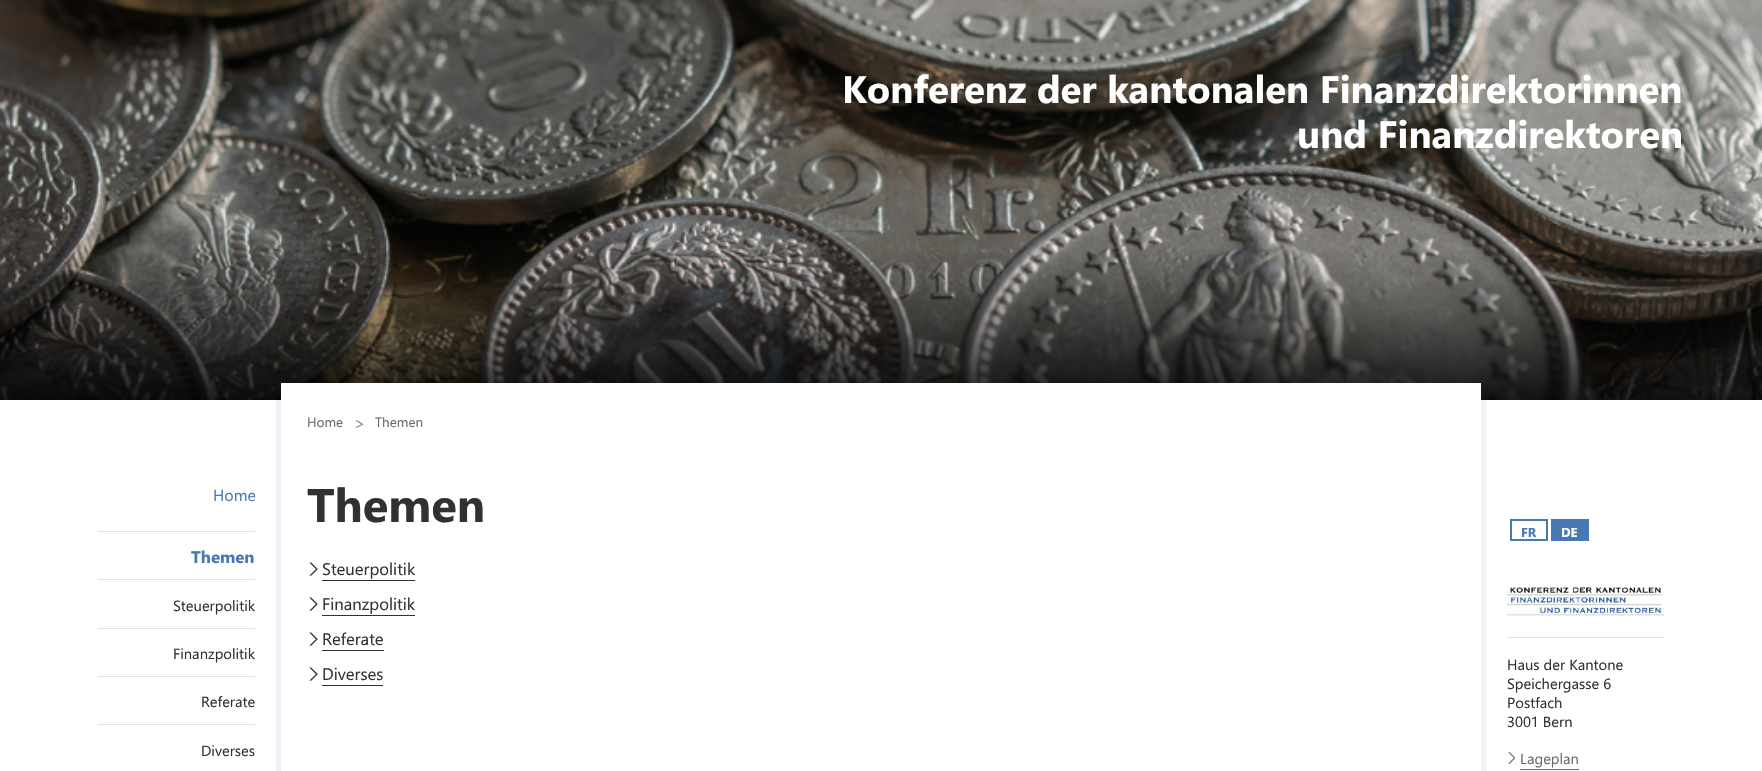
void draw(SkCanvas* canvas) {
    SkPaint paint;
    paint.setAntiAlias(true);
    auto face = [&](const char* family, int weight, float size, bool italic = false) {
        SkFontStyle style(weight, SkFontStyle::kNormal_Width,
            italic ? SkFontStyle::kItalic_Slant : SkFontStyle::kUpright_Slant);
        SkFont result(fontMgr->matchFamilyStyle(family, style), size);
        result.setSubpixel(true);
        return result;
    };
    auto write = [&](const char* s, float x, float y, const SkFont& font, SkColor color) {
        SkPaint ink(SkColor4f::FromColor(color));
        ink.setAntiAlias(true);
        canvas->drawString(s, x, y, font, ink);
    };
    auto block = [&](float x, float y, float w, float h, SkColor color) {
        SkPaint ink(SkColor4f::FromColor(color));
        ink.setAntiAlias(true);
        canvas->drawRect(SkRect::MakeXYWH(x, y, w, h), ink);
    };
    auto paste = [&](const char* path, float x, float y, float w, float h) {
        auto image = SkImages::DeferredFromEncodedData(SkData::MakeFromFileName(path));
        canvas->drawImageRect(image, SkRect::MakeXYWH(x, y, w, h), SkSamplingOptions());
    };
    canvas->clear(SK_ColorWHITE);
    paste("pic1.png", 0, 0, 1762, 400);
    auto kFont1 = face("Segoe UI", 700, 38.3f);
    write("Konferenz der kantonalen Finanzdirektorinnen", 842, 103, kFont1, SK_ColorWHITE);
    write("und Finanzdirektoren", 1297, 148, kFont1, SK_ColorWHITE);
    block(98, 531, 157, 1, SkColorSetRGB(218, 228, 240));
    auto kFont2 = face("Segoe UI", 400, 16);
    write("Home", 213, 501, kFont2, SkColorSetRGB(70, 120, 180));
    block(98, 579, 157, 1, SkColorSetRGB(218, 228, 240));
    auto kFont3 = face("Segoe UI", 700, 16.75f);
    write("Themen", 191, 563, kFont3, SkColorSetRGB(70, 120, 180));
    block(98, 628, 157, 1, SkColorSetRGB(218, 228, 240));
    auto kFont4 = face("Segoe UI", 400, 14.75f);
    write("Steuerpolitik", 173, 611, kFont4, SkColorSetRGB(48, 49, 51));
    block(98, 676, 157, 1, SkColorSetRGB(218, 228, 240));
    write("Finanzpolitik", 173, 659, kFont4, SkColorSetRGB(48, 49, 51));
    block(98, 724, 157, 1, SkColorSetRGB(218, 228, 240));
    write("Referate", 201, 707, kFont4, SkColorSetRGB(48, 49, 51));
    write("Diverses", 201, 756, kFont4, SkColorSetRGB(48, 49, 51));
    block(281, 383, 1200, 17, SK_ColorWHITE);
    block(276, 400, 5, 371, SkColorSetRGB(237, 242, 248));
    auto kFont5 = face("Segoe UI", 400, 13.5f);
    write("Home", 307, 427, kFont5, SkColorSetRGB(107, 107, 107));
    auto kFont6 = face("Segoe UI", 400, 16.75f);
    write(">", 354, 429, kFont6, SkColorSetRGB(137, 137, 137));
    write("Themen", 375, 427, kFont5, SkColorSetRGB(107, 107, 107));
    block(1481, 400, 5, 371, SkColorSetRGB(237, 242, 248));
    auto kFont7 = face("Segoe UI", 700, 47);
    write("Themen", 307, 522, kFont7, SkColorSetRGB(48, 49, 51));
    paste("pic2.png", 309, 562, 9, 14);
    write("Steuerpolitik", 322, 575, kFont6, SkColorSetRGB(48, 49, 51));
    block(322, 580, 93, 1, SkColorSetRGB(48, 49, 51));
    paste("pic2.png", 309, 597, 9, 14);
    write("Finanzpolitik", 322, 610, kFont6, SkColorSetRGB(48, 49, 51));
    block(322, 615, 93, 1, SkColorSetRGB(48, 49, 51));
    paste("pic2.png", 309, 632, 9, 14);
    write("Referate", 322, 645, kFont6, SkColorSetRGB(48, 49, 51));
    block(322, 650, 62, 1, SkColorSetRGB(48, 49, 51));
    paste("pic2.png", 309, 667, 9, 14);
    write("Diverses", 322, 680, kFont6, SkColorSetRGB(48, 49, 51));
    block(322, 685, 61, 1, SkColorSetRGB(48, 49, 51));
    paint.setStyle(SkPaint::kStroke_Style);
    paint.setStrokeWidth(2);
    paint.setColor(SkColorSetRGB(70, 120, 180));
    canvas->drawRect(SkRect::MakeXYWH(1511, 520, 36, 20), paint);
    auto kFont8 = face("Segoe UI", 700, 13);
    write("FR", 1521, 537, kFont8, SkColorSetRGB(70, 120, 180));
    block(1551, 519, 38, 22, SkColorSetRGB(70, 120, 180));
    write("DE", 1561, 537, kFont8, SK_ColorWHITE);
    block(1507, 637, 157, 1, SkColorSetRGB(218, 228, 240));
    paste("pic3.png", 1507, 587, 157, 29);
    write("Haus der Kantone", 1507, 670, kFont4, SkColorSetRGB(48, 49, 51));
    write("Speichergasse 6", 1507, 689, kFont4, SkColorSetRGB(48, 49, 51));
    write("Postfach", 1507, 708, kFont4, SkColorSetRGB(48, 49, 51));
    write("3001 Bern", 1507, 727, kFont4, SkColorSetRGB(48, 49, 51));
    paste("pic4.png", 1508, 752, 8, 12);
    write("Lageplan", 1520, 764, kFont4, SkColorSetRGB(107, 107, 107));
    block(1520, 769, 59, 1, SkColorSetRGB(107, 107, 107));
}
